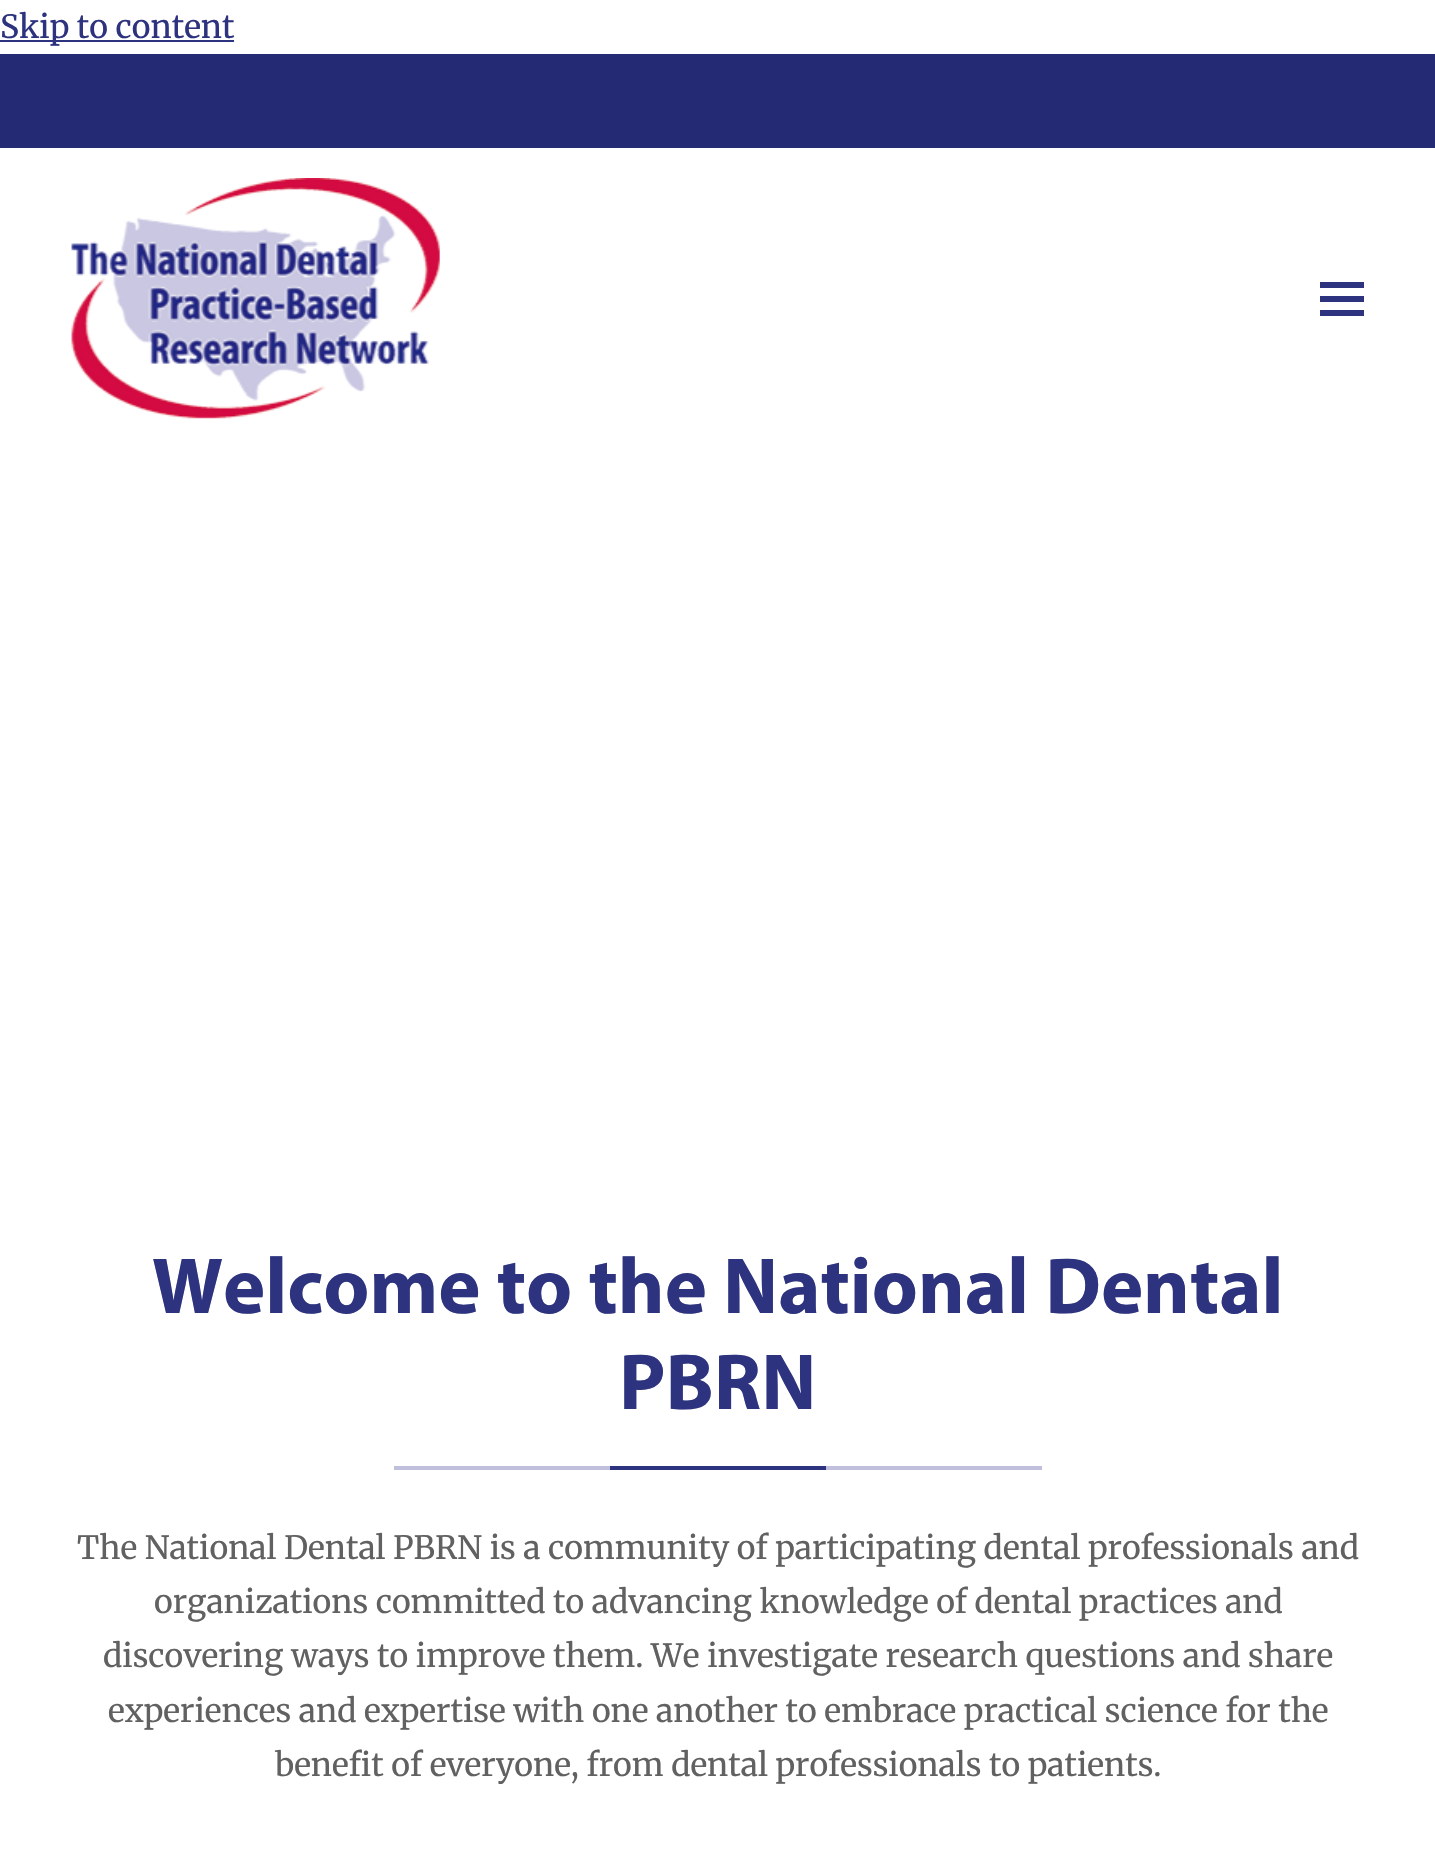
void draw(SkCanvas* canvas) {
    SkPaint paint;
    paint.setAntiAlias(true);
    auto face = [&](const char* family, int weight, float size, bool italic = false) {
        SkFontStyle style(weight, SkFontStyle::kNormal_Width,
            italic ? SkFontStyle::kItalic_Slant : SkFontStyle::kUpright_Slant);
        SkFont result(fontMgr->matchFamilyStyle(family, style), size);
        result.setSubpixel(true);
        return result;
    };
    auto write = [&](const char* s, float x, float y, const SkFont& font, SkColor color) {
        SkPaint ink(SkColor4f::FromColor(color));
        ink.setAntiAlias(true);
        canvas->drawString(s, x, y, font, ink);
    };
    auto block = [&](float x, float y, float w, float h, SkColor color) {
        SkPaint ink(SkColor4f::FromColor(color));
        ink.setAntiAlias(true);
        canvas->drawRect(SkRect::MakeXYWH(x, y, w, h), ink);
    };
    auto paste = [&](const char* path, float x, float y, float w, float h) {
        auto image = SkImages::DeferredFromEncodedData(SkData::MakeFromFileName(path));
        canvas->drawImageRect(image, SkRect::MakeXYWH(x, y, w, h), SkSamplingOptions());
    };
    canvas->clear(SK_ColorWHITE);
    block(0, 40, 234, 2, SkColorSetRGB(45, 51, 126));
    auto kFont1 = face("Merriweather", 400, 32);
    write("Skip to content", 0, 38, kFont1, SkColorSetRGB(45, 51, 126));
    block(0, 54, 1435, 94, SkColorSetRGB(37, 42, 117));
    paste("pic1.png", 71, 178, 369, 241);
    block(1320, 296, 44, 6, SkColorSetRGB(45, 51, 126));
    block(1320, 282, 44, 6, SkColorSetRGB(45, 51, 126));
    block(1320, 310, 44, 6, SkColorSetRGB(45, 51, 126));
    auto kFont2 = face("Myriad", 700, 80);
    write("Welcome to the National Dental", 152, 1313, kFont2, SkColorSetRGB(45, 51, 126));
    write("PBRN", 619, 1409, kFont2, SkColorSetRGB(45, 51, 126));
    block(394, 1466, 216, 4, SkColorSetRGB(192, 191, 220));
    block(610, 1466, 216, 4, SkColorSetRGB(45, 51, 126));
    block(826, 1466, 216, 4, SkColorSetRGB(192, 191, 220));
    write("The National Dental PBRN is a community of participating dental professionals and", 77, 1559, kFont1, SkColorSetRGB(97, 97, 97));
    write("organizations committed to advancing knowledge of dental practices and", 154, 1613, kFont1, SkColorSetRGB(97, 97, 97));
    write("discovering ways to improve them. We investigate research questions and share", 103, 1667, kFont1, SkColorSetRGB(97, 97, 97));
    write("experiences and expertise with one another to embrace practical science for the", 108, 1722, kFont1, SkColorSetRGB(97, 97, 97));
    write("benefit of everyone, from dental professionals to patients.", 275, 1776, kFont1, SkColorSetRGB(97, 97, 97));
}
